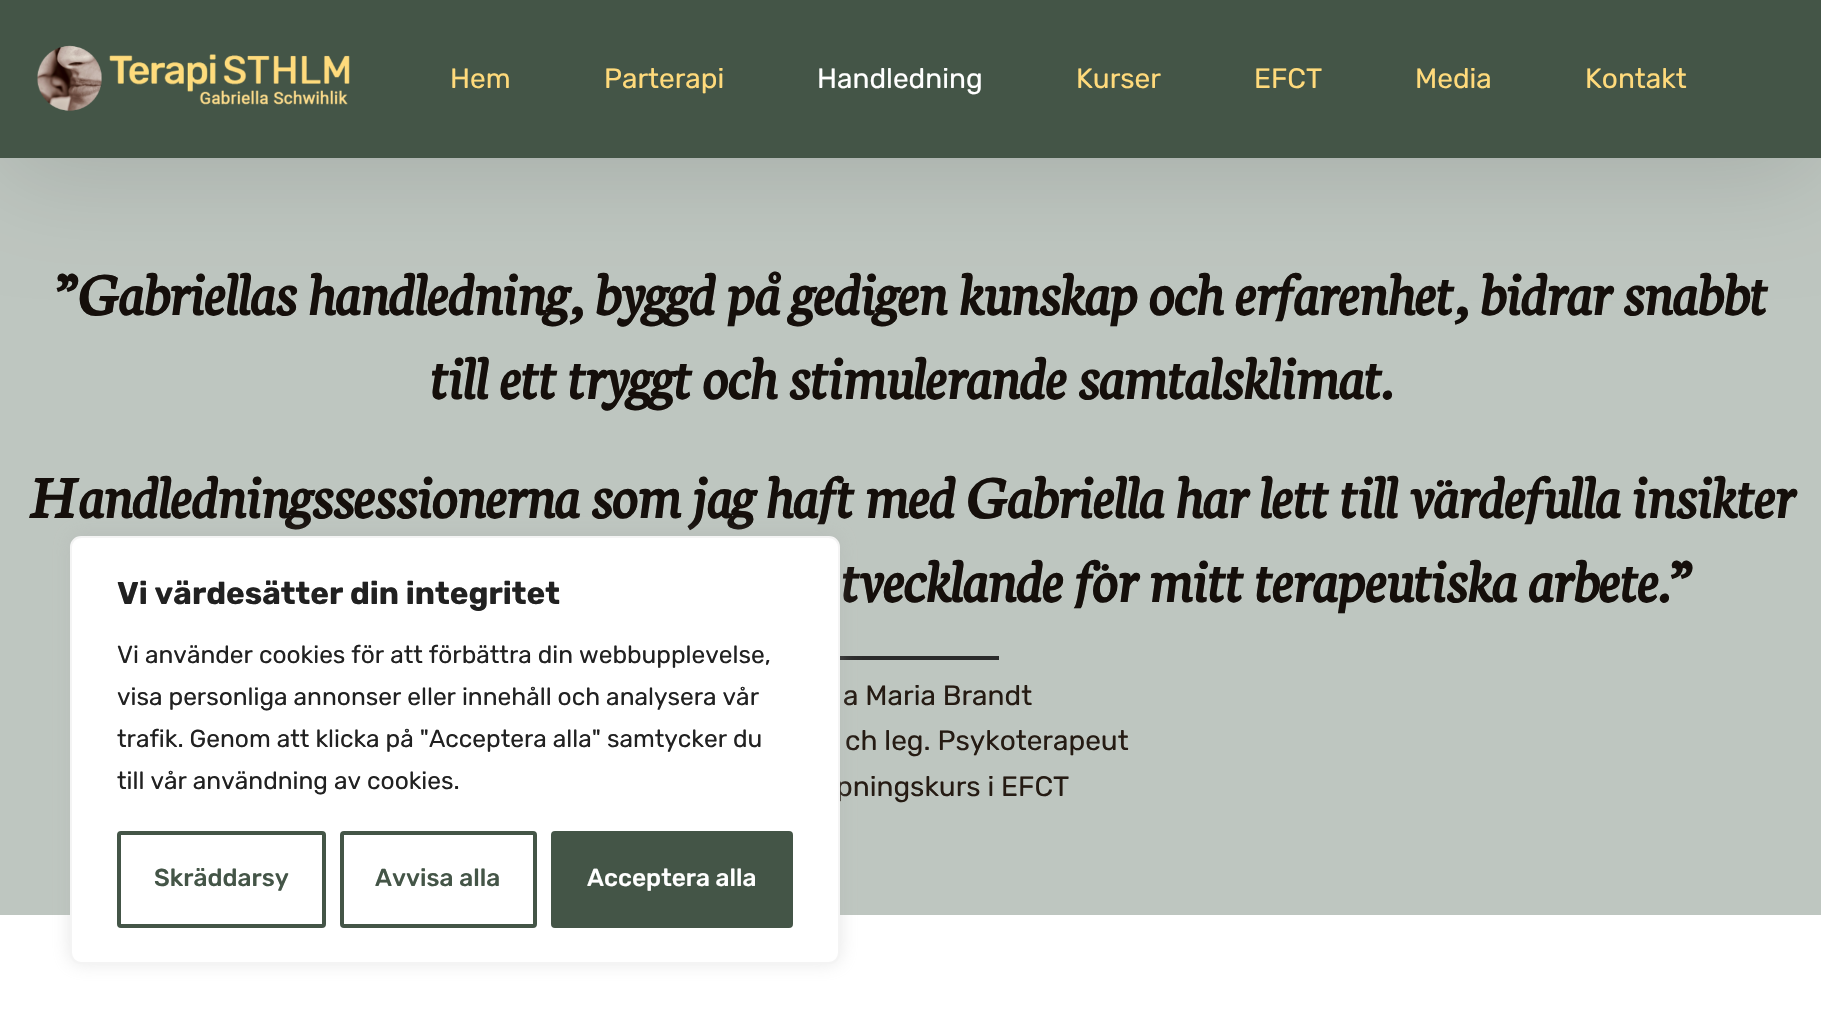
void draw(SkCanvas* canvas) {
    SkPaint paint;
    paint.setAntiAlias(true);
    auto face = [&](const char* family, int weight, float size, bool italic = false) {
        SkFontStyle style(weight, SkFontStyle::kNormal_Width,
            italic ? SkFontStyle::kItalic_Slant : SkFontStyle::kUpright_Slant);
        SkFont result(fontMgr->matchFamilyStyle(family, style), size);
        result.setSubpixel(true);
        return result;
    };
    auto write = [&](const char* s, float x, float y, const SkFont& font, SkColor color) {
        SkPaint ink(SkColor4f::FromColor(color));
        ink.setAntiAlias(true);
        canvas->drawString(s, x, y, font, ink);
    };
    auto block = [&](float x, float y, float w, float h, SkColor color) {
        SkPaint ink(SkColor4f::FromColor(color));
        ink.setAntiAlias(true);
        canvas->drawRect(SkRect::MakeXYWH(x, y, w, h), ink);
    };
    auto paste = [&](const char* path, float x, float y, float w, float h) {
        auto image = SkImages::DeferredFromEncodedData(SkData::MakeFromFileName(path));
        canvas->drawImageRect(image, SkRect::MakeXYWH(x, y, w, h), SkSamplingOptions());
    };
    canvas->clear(SK_ColorWHITE);
    block(0, 158, 1821, 757, SkColorSetRGB(190, 198, 192));
    paint.setColor(SkColorSetARGB(31, 0, 0, 0));
    paint.setMaskFilter(SkMaskFilter::MakeBlur(kNormal_SkBlurStyle, 52.5f));
    canvas->drawRect(SkRect::MakeXYWH(0, 18, 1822, 157), paint);
    paint.setMaskFilter(nullptr);
    block(0, 0, 1821, 158, SkColorSetRGB(68, 85, 71));
    paste("pic1.png", 37, 45, 313, 66);
    auto kFont1 = face("Rubik", 400, 28);
    write("Hem", 450, 88, kFont1, SkColorSetRGB(255, 218, 123));
    write("Parterapi", 604, 88, kFont1, SkColorSetRGB(255, 218, 123));
    write("Handledning", 817, 88, kFont1, SK_ColorWHITE);
    write("Kurser", 1076, 88, kFont1, SkColorSetRGB(255, 218, 123));
    write("EFCT", 1254, 88, kFont1, SkColorSetRGB(255, 218, 123));
    write("Media", 1415, 88, kFont1, SkColorSetRGB(255, 218, 123));
    write("Kontakt", 1585, 88, kFont1, SkColorSetRGB(255, 218, 123));
    auto kFont2 = face("Neuton", 700, 63, true);
    write("”Gabriellas handledning, byggd på gedigen kunskap och erfarenhet, bidrar snabbt", 55, 315, kFont2, SkColorSetRGB(21, 15, 11));
    write("till ett tryggt och stimulerande samtalsklimat.", 430, 399, kFont2, SkColorSetRGB(21, 15, 11));
    write("Handledningssessionerna som jag haft med Gabriella har lett till värdefulla insikter", 28, 518, kFont2, SkColorSetRGB(21, 15, 11));
    write("tvecklande för mitt terapeutiska arbete.”", 841, 602, kFont2, SkColorSetRGB(21, 15, 11));
    block(840, 656, 159, 4, SkColorSetRGB(42, 42, 42));
    write("a Maria Brandt", 843, 705, kFont1, SkColorSetRGB(37, 27, 19));
    write("ch leg. Psykoterapeut", 845, 750, kFont1, SkColorSetRGB(37, 27, 19));
    write("pningskurs i EFCT", 836, 796, kFont1, SkColorSetRGB(37, 27, 19));
    paint.setColor(SkColorSetARGB(77, 172, 171, 171));
    paint.setMaskFilter(SkMaskFilter::MakeBlur(kNormal_SkBlurStyle, 9));
    canvas->drawRoundRect(SkRect::MakeXYWH(70, 534, 770, 429), 11, 11, paint);
    paint.setMaskFilter(nullptr);
    paint.setColor(SK_ColorWHITE);
    canvas->drawRoundRect(SkRect::MakeXYWH(71, 537, 768, 426), 10, 10, paint);
    paint.setStyle(SkPaint::kStroke_Style);
    paint.setStrokeWidth(2);
    paint.setColor(SkColorSetRGB(244, 244, 244));
    canvas->drawRoundRect(SkRect::MakeXYWH(71, 537, 768, 426), 10, 10, paint);
    auto kFont3 = face("Rubik", 700, 31.5f);
    write("Vi värdesätter din integritet", 117, 604, kFont3, SkColorSetRGB(33, 33, 33));
    auto kFont4 = face("Rubik", 400, 24.5f);
    write("Vi använder cookies för att förbättra din webbupplevelse,", 117, 663, kFont4, SkColorSetRGB(33, 33, 33));
    write("visa personliga annonser eller innehåll och analysera vår", 117, 705, kFont4, SkColorSetRGB(33, 33, 33));
    write("trafik. Genom att klicka på \"Acceptera alla\" samtycker du", 117, 747, kFont4, SkColorSetRGB(33, 33, 33));
    write("till vår användning av cookies.", 117, 789, kFont4, SkColorSetRGB(33, 33, 33));
    paint.setStrokeWidth(4);
    paint.setColor(SkColorSetRGB(68, 85, 71));
    canvas->drawRoundRect(SkRect::MakeXYWH(119, 833, 205, 93), 2, 2, paint);
    auto kFont5 = face("Rubik", 500, 24.5f);
    write("Skräddarsy", 154, 886, kFont5, SkColorSetRGB(68, 85, 71));
    canvas->drawRoundRect(SkRect::MakeXYWH(342, 833, 193, 93), 2, 2, paint);
    write("Avvisa alla", 375, 886, kFont5, SkColorSetRGB(68, 85, 71));
    paint.setStyle(SkPaint::kFill_Style);
    canvas->drawRoundRect(SkRect::MakeXYWH(553, 833, 238, 93), 2, 2, paint);
    paint.setStyle(SkPaint::kStroke_Style);
    canvas->drawRoundRect(SkRect::MakeXYWH(553, 833, 238, 93), 2, 2, paint);
    write("Acceptera alla", 587, 886, kFont5, SK_ColorWHITE);
}
